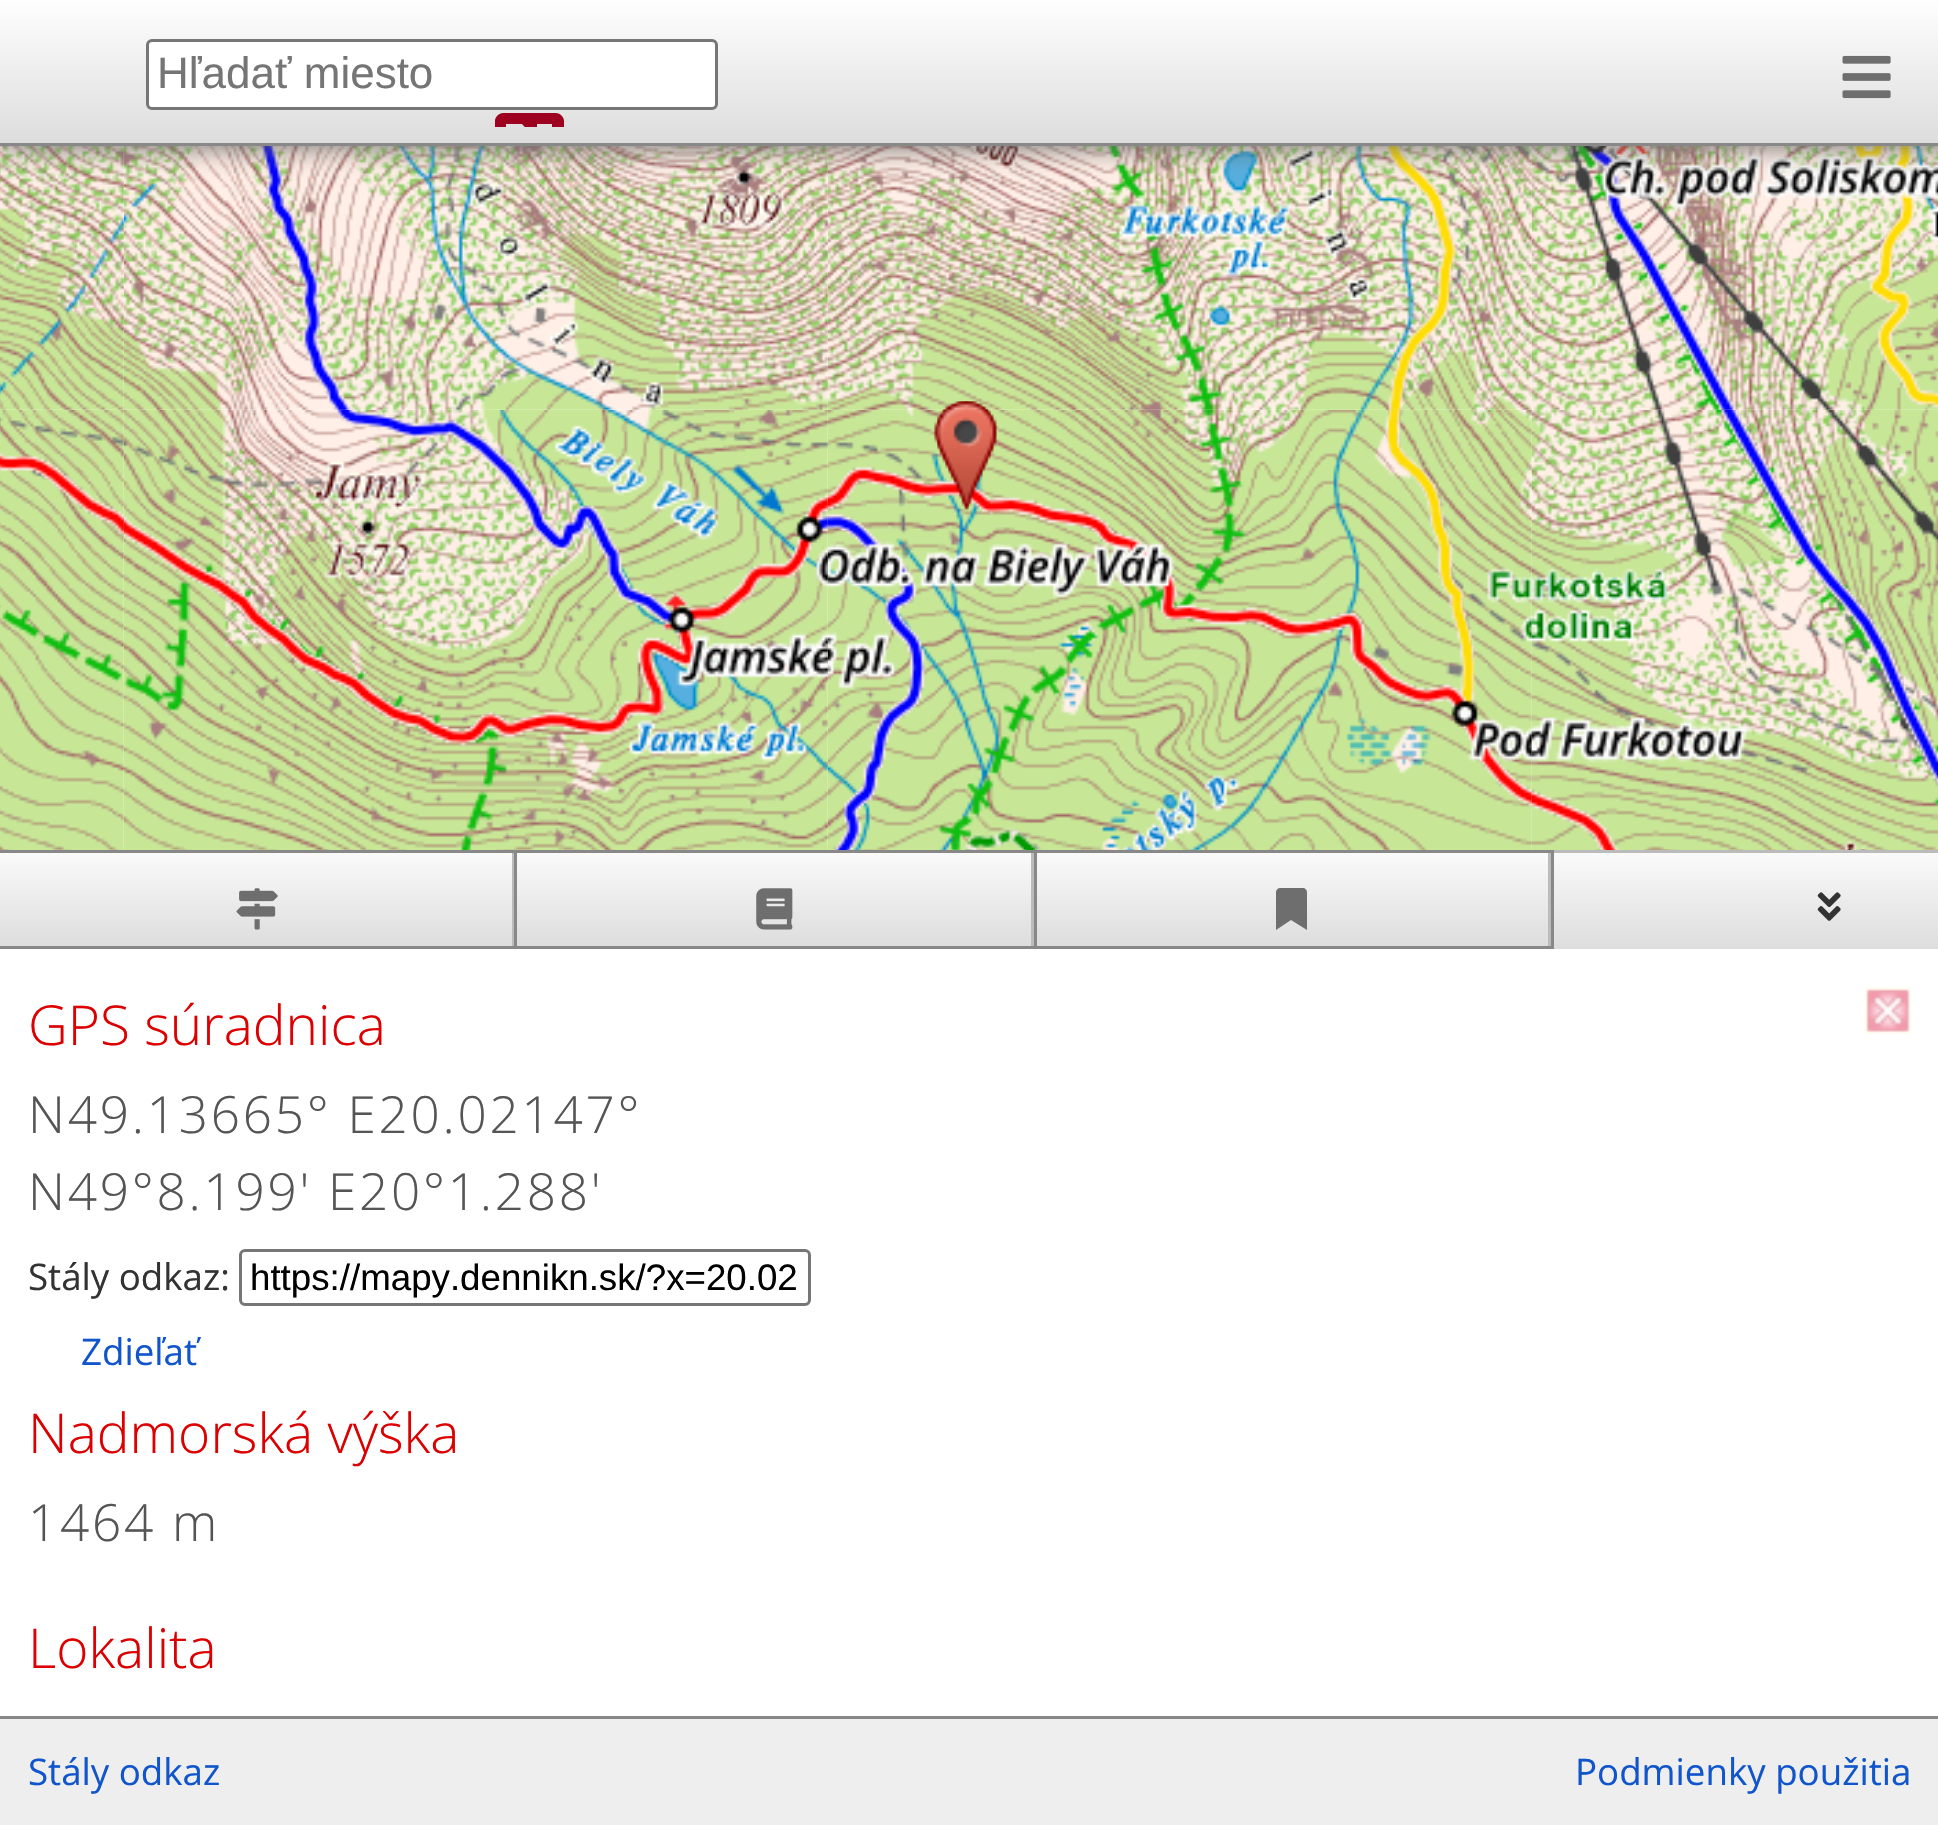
void draw(SkCanvas* canvas) {
    SkPaint paint;
    paint.setAntiAlias(true);
    auto face = [&](const char* family, int weight, float size, bool italic = false) {
        SkFontStyle style(weight, SkFontStyle::kNormal_Width,
            italic ? SkFontStyle::kItalic_Slant : SkFontStyle::kUpright_Slant);
        SkFont result(fontMgr->matchFamilyStyle(family, style), size);
        result.setSubpixel(true);
        return result;
    };
    auto write = [&](const char* s, float x, float y, const SkFont& font, SkColor color) {
        SkPaint ink(SkColor4f::FromColor(color));
        ink.setAntiAlias(true);
        canvas->drawString(s, x, y, font, ink);
    };
    auto writeSpaced = [&](const char* s, float x, float y, const SkFont& font, const SkPaint& ink, float letter, float word) {
        std::vector<SkGlyphID> glyphs(font.countText(s, strlen(s), SkTextEncoding::kUTF8));
        std::vector<float> xs(glyphs.size());
        font.textToGlyphs(s, strlen(s), SkTextEncoding::kUTF8, glyphs);
        font.getXPos(glyphs, xs, x);
        float extra = 0;
        for (size_t i = 0; i < glyphs.size(); i++) {
            xs[i] += extra;
            extra += letter + word * (glyphs[i] == font.unicharToGlyph(' '));
        }
        canvas->drawTextBlob(SkTextBlob::MakeFromPosHGlyphs(glyphs, xs, y, font), 0, 0, ink);
    };
    auto block = [&](float x, float y, float w, float h, SkColor color) {
        SkPaint ink(SkColor4f::FromColor(color));
        ink.setAntiAlias(true);
        canvas->drawRect(SkRect::MakeXYWH(x, y, w, h), ink);
    };
    auto paste = [&](const char* path, float x, float y, float w, float h) {
        auto image = SkImages::DeferredFromEncodedData(SkData::MakeFromFileName(path));
        canvas->drawImageRect(image, SkRect::MakeXYWH(x, y, w, h), SkSamplingOptions());
    };
    canvas->clear(SK_ColorWHITE);
    paste("pic8.png", 827, 409, 705, 441);
    paste("pic4.png", 827, 146, 705, 266);
    paste("pic7.png", 123, 409, 705, 441);
    paste("pic3.png", 123, 146, 705, 264);
    paste("pic6.png", 0, 409, 124, 441);
    paste("pic2.png", 0, 146, 124, 264);
    paste("pic9.png", 1531, 409, 407, 441);
    paste("pic5.png", 1531, 146, 407, 264);
    paste("pic15.png", 827, 407, 705, 443);
    paste("pic14.png", 123, 409, 705, 338);
    paste("pic10.png", 259, 146, 94, 264);
    paste("pic11.png", 941, 146, 517, 266);
    paste("pic16.png", 1531, 409, 407, 441);
    paste("pic12.png", 1579, 146, 359, 264);
    paint.setColor(SkColorSetRGB(102, 102, 102));
    paint.setMaskFilter(SkMaskFilter::MakeBlur(kNormal_SkBlurStyle, 14));
    canvas->drawRect(SkRect::MakeXYWH(0, -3, 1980, 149), paint);
    paint.setMaskFilter(nullptr);
    {
        const SkColor colors[] = {SK_ColorWHITE, SkColorSetRGB(221, 221, 221)};
        const float stops[] = {0, 1};
        const SkPoint ends[] = {{0, -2.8f}, {0, 143}};
        paint.setShader(SkGradientShader::MakeLinear(ends, colors, stops, 2, SkTileMode::kClamp));
        paint.setAlpha(255);
    }
    canvas->drawRect(SkRect::MakeXYWH(0, 0, 1938, 143), paint);
    block(0, 143, 1938, 3, SkColorSetRGB(136, 136, 136));
    paint.setShader(nullptr);
    paint.setColor(SK_ColorWHITE);
    canvas->drawRoundRect(SkRect::MakeXYWH(147.5f, 40.5f, 569, 68), 4.5f, 4.5f, paint);
    paint.setStyle(SkPaint::kStroke_Style);
    paint.setStrokeWidth(3);
    paint.setColor(SkColorSetRGB(118, 118, 118));
    canvas->drawRoundRect(SkRect::MakeXYWH(147.5f, 40.5f, 569, 68), 4.5f, 4.5f, paint);
    auto kFont1 = face("Liberation Sans", 400, 44);
    write("Hľadať miesto", 157, 88, kFont1, SkColorSetRGB(117, 117, 117));
    canvas->save();
    canvas->clipRect(SkRect::MakeXYWH(495, 113, 69, 14));
    paint.setStyle(SkPaint::kFill_Style);
    paint.setColor(SkColorSetRGB(158, 0, 31));
    canvas->drawPath(SkPathBuilder(SkPathFillType::kEvenOdd).moveTo(503, 113).cubicTo(499, 113, 495, 117, 495, 121).lineTo(495, 174).cubicTo(495, 178, 499, 182, 503, 182).lineTo(556, 182).cubicTo(560, 182, 564, 178, 564, 174).lineTo(564, 121).cubicTo(564, 117, 560, 113, 556, 113).close().moveTo(522, 124).lineTo(537, 140).lineTo(537, 149).lineTo(519, 130).lineTo(513, 130).lineTo(513, 164).lineTo(522, 164).lineTo(522, 170).lineTo(506, 170).lineTo(506, 124).close().moveTo(552, 124).lineTo(552, 170).lineTo(537, 170).lineTo(522, 154).lineTo(522, 145).lineTo(540, 164).lineTo(546, 164).lineTo(546, 130).lineTo(537, 130).lineTo(537, 124).close().detach(), paint);
    canvas->restore();
    paste("pic1.png", 1842, 55, 49, 44);
    paste("pic13.png", 0, 453, 124, 84);
    paste("pic17.png", 934, 401, 63, 109);
    {
        const SkColor colors[] = {SkColorSetRGB(250, 250, 250), SkColorSetRGB(221, 221, 221)};
        const float stops[] = {0, 1};
        const SkPoint ends[] = {{0, 853}, {0, 949}};
        paint.setShader(SkGradientShader::MakeLinear(ends, colors, stops, 2, SkTileMode::kClamp));
        paint.setAlpha(255);
    }
    canvas->drawRect(SkRect::MakeXYWH(1554, 853, 384, 96), paint);
    block(1554, 850, 384, 3, SkColorSetRGB(187, 187, 187));
    {
        const SkColor colors[] = {SkColorSetRGB(250, 250, 250), SkColorSetRGB(221, 221, 221)};
        const float stops[] = {0, 1};
        const SkPoint ends[] = {{0, 853}, {0, 946}};
        paint.setShader(SkGradientShader::MakeLinear(ends, colors, stops, 2, SkTileMode::kClamp));
        paint.setAlpha(255);
    }
    canvas->drawRect(SkRect::MakeXYWH(0, 853, 512, 93), paint);
    block(512, 853, 2, 93, SkColorSetRGB(187, 187, 187));
    paint.setStyle(SkPaint::kStroke_Style);
    paint.setShader(nullptr);
    paint.setColor(SkColorSetRGB(136, 136, 136));
    canvas->drawRect(SkRect::MakeXYWH(-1.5f, 851.5f, 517, 96), paint);
    paste("pic18.png", 236, 888, 42, 42);
    paint.setStyle(SkPaint::kFill_Style);
    {
        const SkColor colors[] = {SkColorSetRGB(250, 250, 250), SkColorSetRGB(221, 221, 221)};
        const float stops[] = {0, 1};
        const SkPoint ends[] = {{517, 853}, {517, 946}};
        paint.setShader(SkGradientShader::MakeLinear(ends, colors, stops, 2, SkTileMode::kClamp));
        paint.setAlpha(255);
    }
    canvas->drawRect(SkRect::MakeXYWH(517, 853, 514, 93), paint);
    block(1031, 853, 3, 93, SkColorSetRGB(187, 187, 187));
    paint.setStyle(SkPaint::kStroke_Style);
    paint.setShader(nullptr);
    paint.setColor(SkColorSetRGB(136, 136, 136));
    canvas->drawRect(SkRect::MakeXYWH(515.5f, 851.5f, 520, 96), paint);
    paste("pic19.png", 756, 888, 37, 42);
    paint.setStyle(SkPaint::kFill_Style);
    {
        const SkColor colors[] = {SkColorSetRGB(250, 250, 250), SkColorSetRGB(221, 221, 221)};
        const float stops[] = {0, 1};
        const SkPoint ends[] = {{1037, 853}, {1037, 946}};
        paint.setShader(SkGradientShader::MakeLinear(ends, colors, stops, 2, SkTileMode::kClamp));
        paint.setAlpha(255);
    }
    canvas->drawRect(SkRect::MakeXYWH(1037, 853, 511, 93), paint);
    block(1548, 853, 3, 93, SkColorSetRGB(187, 187, 187));
    paint.setStyle(SkPaint::kStroke_Style);
    paint.setShader(nullptr);
    paint.setColor(SkColorSetRGB(136, 136, 136));
    canvas->drawRect(SkRect::MakeXYWH(1035.5f, 851.5f, 517, 96), paint);
    paint.setStyle(SkPaint::kFill_Style);
    paint.setColor(SkColorSetRGB(110, 110, 110));
    canvas->drawPath(SkPathBuilder().moveTo(1276, 930).lineTo(1276, 892).cubicTo(1276, 890, 1278, 888, 1280, 888).lineTo(1303, 888).cubicTo(1305, 888, 1307, 890, 1307, 892).lineTo(1307, 930).lineTo(1291, 920).close().detach(), paint);
    paste("pic20.png", 1817, 892, 24, 29);
    auto kFont2 = face("Open Sans", 300, 55);
    write("GPS súradnica", 28, 1045, kFont2, SkColorSetRGB(221, 0, 0));
    auto kFont3 = face("Open Sans", 300, 51.25f);
    paint.setColor(SkColorSetRGB(85, 85, 85));
    writeSpaced("N49.13665° E20.02147°", 28, 1133, kFont3, paint, 2.75f, 0);
    writeSpaced("N49°8.199' E20°1.288'", 28, 1210, kFont3, paint, 2.75f, 0);
    auto kFont4 = face("Open Sans", 400, 36.7f);
    write("Stály odkaz:", 28, 1290, kFont4, SkColorSetRGB(51, 51, 51));
    paint.setStyle(SkPaint::kStroke_Style);
    paint.setColor(SkColorSetRGB(118, 118, 118));
    canvas->drawRoundRect(SkRect::MakeXYWH(240.5f, 1250.5f, 569, 54), 4.5f, 4.5f, paint);
    auto kFont5 = face("Liberation Sans", 400, 36.7f);
    write("https://mapy.dennikn.sk/?x=20.02", 250, 1290, kFont5, SK_ColorBLACK);
    write("Zdieľať", 81, 1365, kFont4, SkColorSetRGB(17, 85, 204));
    write("Nadmorská výška", 28, 1453, kFont2, SkColorSetRGB(221, 0, 0));
    paint.setStyle(SkPaint::kFill_Style);
    paint.setColor(SkColorSetRGB(85, 85, 85));
    writeSpaced("1464 m", 28, 1541, kFont3, paint, 2.75f, 0);
    write("Lokalita", 28, 1668, kFont2, SkColorSetRGB(221, 0, 0));
    paste("pic21.png", 1864, 987, 47, 47);
    block(0, 1719, 1938, 106, SkColorSetRGB(238, 238, 238));
    block(0, 1716, 1938, 3, SkColorSetRGB(136, 136, 136));
    write("Stály odkaz", 28, 1785, kFont4, SkColorSetRGB(17, 85, 204));
    write("Podmienky použitia", 1575, 1785, kFont4, SkColorSetRGB(17, 85, 204));
}
